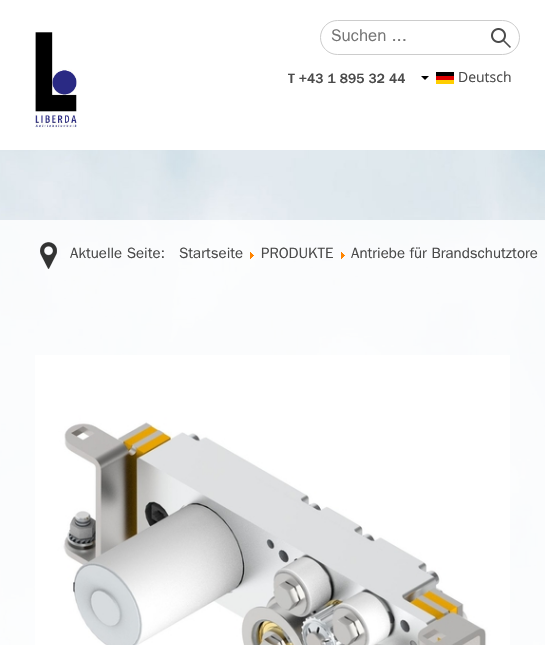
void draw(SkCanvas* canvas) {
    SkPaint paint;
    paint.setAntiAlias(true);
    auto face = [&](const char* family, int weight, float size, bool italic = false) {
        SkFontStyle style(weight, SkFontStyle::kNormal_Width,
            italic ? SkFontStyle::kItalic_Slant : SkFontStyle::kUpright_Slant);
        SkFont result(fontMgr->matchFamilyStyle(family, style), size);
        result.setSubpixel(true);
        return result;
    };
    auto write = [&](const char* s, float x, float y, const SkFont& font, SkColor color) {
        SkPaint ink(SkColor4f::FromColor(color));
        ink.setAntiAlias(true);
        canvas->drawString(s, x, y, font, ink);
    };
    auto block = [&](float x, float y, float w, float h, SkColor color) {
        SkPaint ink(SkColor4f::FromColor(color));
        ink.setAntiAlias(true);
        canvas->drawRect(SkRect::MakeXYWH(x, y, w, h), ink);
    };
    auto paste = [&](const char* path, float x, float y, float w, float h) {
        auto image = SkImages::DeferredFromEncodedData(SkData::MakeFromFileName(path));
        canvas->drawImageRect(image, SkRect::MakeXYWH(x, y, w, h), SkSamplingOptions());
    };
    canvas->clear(SK_ColorWHITE);
    paste("pic1.png", 35, 32, 42, 96);
    paste("pic2.png", 491, 28, 20, 20);
    paint.setStyle(SkPaint::kStroke_Style);
    paint.setStrokeWidth(1);
    paint.setColor(SkColorSetRGB(204, 204, 204));
    canvas->drawRoundRect(SkRect::MakeXYWH(320.5f, 20.5f, 199, 34), 17, 17, paint);
    auto kFont1 = face("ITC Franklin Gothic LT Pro", 400, 17);
    write("Suchen ...", 331, 41, kFont1, SkColorSetRGB(117, 117, 117));
    paint.setStyle(SkPaint::kFill_Style);
    paint.setColor(SK_ColorBLACK);
    canvas->drawPath(SkPathBuilder().moveTo(421, 76).lineTo(429, 76).lineTo(425, 80).close().detach(), paint);
    paste("pic3.png", 436, 72, 18, 12);
    auto kFont2 = face("Open Sans", 400, 14);
    write("Deutsch", 458, 82, kFont2, SkColorSetRGB(74, 74, 74));
    auto kFont3 = face("ITC Franklin Gothic LT Pro", 500, 14);
    write("T +43 1 895 32 44", 288, 83, kFont3, SkColorSetRGB(74, 74, 74));
    paste("pic4.png", 0, 150, 545, 495);
    block(0, 220, 545, 425, SkColorSetARGB(204, 255, 255, 255));
    paste("pic5.png", 40, 242, 17, 27);
    auto kFont4 = face("ITC Franklin Gothic LT Pro", 400, 15);
    write("Aktuelle Seite:", 70, 258, kFont4, SkColorSetRGB(74, 74, 74));
    write("Startseite", 179, 258, kFont4, SkColorSetRGB(74, 74, 74));
    paste("pic6.png", 250, 252, 4, 7);
    write("PRODUKTE", 261, 258, kFont4, SkColorSetRGB(74, 74, 74));
    paste("pic7.png", 341, 252, 4, 7);
    write("Antriebe für Brandschutztore", 351, 258, kFont4, SkColorSetRGB(74, 74, 74));
    paste("pic8.png", 35, 355, 475, 290);
}
